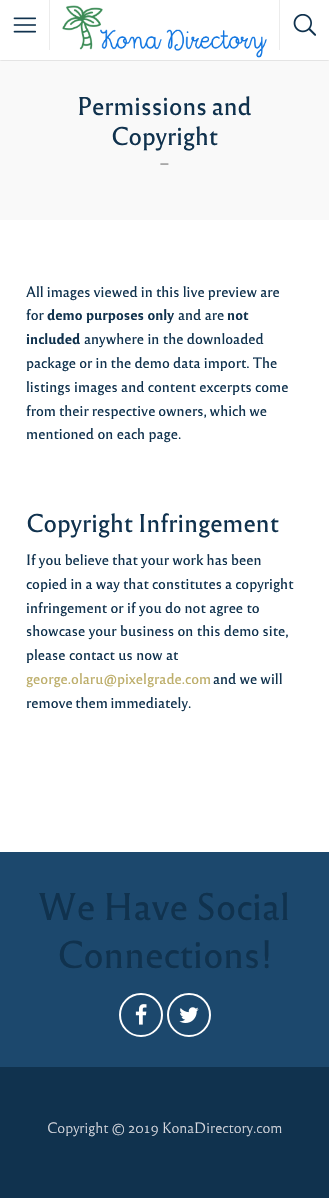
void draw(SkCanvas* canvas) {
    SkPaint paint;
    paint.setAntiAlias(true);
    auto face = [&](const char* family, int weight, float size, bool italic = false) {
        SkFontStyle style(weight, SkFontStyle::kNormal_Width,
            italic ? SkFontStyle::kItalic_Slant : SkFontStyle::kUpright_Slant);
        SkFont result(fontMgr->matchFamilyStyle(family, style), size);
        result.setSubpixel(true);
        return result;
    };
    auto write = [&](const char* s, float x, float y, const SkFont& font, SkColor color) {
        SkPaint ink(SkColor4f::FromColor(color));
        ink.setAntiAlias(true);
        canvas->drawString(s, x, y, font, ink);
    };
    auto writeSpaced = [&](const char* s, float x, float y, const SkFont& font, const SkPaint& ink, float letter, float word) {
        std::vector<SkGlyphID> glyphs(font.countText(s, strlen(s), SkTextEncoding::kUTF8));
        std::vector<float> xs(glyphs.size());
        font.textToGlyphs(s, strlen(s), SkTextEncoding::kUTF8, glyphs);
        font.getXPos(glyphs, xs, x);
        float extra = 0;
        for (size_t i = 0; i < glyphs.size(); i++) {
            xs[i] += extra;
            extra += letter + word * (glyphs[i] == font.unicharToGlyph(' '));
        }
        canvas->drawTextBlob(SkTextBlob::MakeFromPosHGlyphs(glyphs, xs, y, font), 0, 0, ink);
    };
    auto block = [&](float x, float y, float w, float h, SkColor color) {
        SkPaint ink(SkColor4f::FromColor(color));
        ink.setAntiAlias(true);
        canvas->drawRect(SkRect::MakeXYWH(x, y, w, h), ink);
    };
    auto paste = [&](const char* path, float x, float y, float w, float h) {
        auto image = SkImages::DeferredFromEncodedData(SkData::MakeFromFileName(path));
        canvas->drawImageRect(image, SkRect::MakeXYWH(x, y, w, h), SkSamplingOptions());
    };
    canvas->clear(SK_ColorWHITE);
    block(0, 60, 329, 160, SkColorSetRGB(249, 249, 249));
    canvas->save();
    canvas->clipRect(SkRect::MakeXYWH(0, 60, 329, 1));
    paint.setColor(SkColorSetARGB(64, 0, 0, 0));
    paint.setMaskFilter(SkMaskFilter::MakeBlur(kNormal_SkBlurStyle, 1));
    canvas->drawRect(SkRect::MakeXYWH(0, 0, 329, 60), paint);
    paint.setMaskFilter(nullptr);
    canvas->restore();
    block(49, 0, 1, 50, SkColorSetRGB(236, 236, 236));
    paste("pic1.png", 13, 17, 23, 16);
    paste("pic2.png", 62, 5, 205, 53);
    block(279, 0, 1, 50, SkColorSetRGB(236, 236, 236));
    paste("pic3.png", 293, 14, 23, 22);
    auto kFont1 = face("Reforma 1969", 500, 24);
    paint.setColor(SkColorSetRGB(16, 50, 78));
    writeSpaced("Permissions and", 77, 115, kFont1, paint, 0, -1);
    write("Copyright", 111, 145, kFont1, SkColorSetRGB(16, 50, 78));
    auto kFont2 = face("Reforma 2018", 500, 18);
    write("–", 159, 169, kFont2, SkColorSetRGB(145, 145, 145));
    auto kFont3 = face("Reforma 1969", 500, 14);
    writeSpaced("All images viewed in this live preview are", 26, 297, kFont3, paint, 0, -0.25f);
    write("for", 26, 320, kFont3, SkColorSetRGB(16, 50, 78));
    auto kFont4 = face("Reforma 1969", 700, 14);
    write("demo purposes only", 47, 320, kFont4, SkColorSetRGB(16, 50, 78));
    write("and are", 178, 320, kFont3, SkColorSetRGB(16, 50, 78));
    write("not", 227, 320, kFont4, SkColorSetRGB(16, 50, 78));
    write("included", 26, 344, kFont4, SkColorSetRGB(16, 50, 78));
    write("anywhere in the downloaded", 84, 344, kFont3, SkColorSetRGB(16, 50, 78));
    writeSpaced("package or in the demo data import. The", 26, 368, kFont3, paint, 0, -0.25f);
    write("listings images and content excerpts come", 26, 392, kFont3, SkColorSetRGB(16, 50, 78));
    writeSpaced("from their respective owners, which we", 26, 416, kFont3, paint, 0, -0.5f);
    write("mentioned on each page.", 26, 439, kFont3, SkColorSetRGB(16, 50, 78));
    writeSpaced("Copyright Infringement", 26, 532, kFont1, paint, 0, -1);
    writeSpaced("If you believe that your work has been", 26, 565, kFont3, paint, 0, -0.25f);
    writeSpaced("copied in a way that constitutes a copyright", 26, 589, kFont3, paint, 0, -0.25f);
    write("infringement or if you do not agree to", 26, 613, kFont3, SkColorSetRGB(16, 50, 78));
    write("showcase your business on this demo site,", 26, 636, kFont3, SkColorSetRGB(16, 50, 78));
    write("please contact us now at", 26, 660, kFont3, SkColorSetRGB(16, 50, 78));
    write("george.olaru@pixelgrade.com", 26, 684, kFont3, SkColorSetRGB(189, 174, 106));
    writeSpaced("and we will", 213, 684, kFont3, paint, 0, -0.25f);
    writeSpaced("remove them immediately.", 26, 708, kFont3, paint, 0, -1);
    block(0, 1067, 329, 131, SkColorSetRGB(16, 50, 78));
    block(0, 852, 329, 215, SkColorSetRGB(28, 72, 109));
    auto kFont5 = face("Reforma 1969", 500, 36);
    writeSpaced("We Have Social", 38, 920, kFont5, paint, 0, -1);
    write("Connections!", 57, 968, kFont5, SkColorSetRGB(16, 50, 78));
    paint.setStyle(SkPaint::kStroke_Style);
    paint.setStrokeWidth(2);
    paint.setColor(SK_ColorWHITE);
    canvas->drawCircle(141, 1015, 21, paint);
    paste("pic4.png", 135, 1004, 12, 21);
    canvas->drawCircle(189, 1015, 21, paint);
    paste("pic5.png", 179, 1007, 20, 16);
    auto kFont6 = face("Reforma 1969", 300, 14);
    write("Copyright © 2019 KonaDirectory.com", 47, 1133, kFont6, SkColorSetRGB(217, 218, 224));
}
